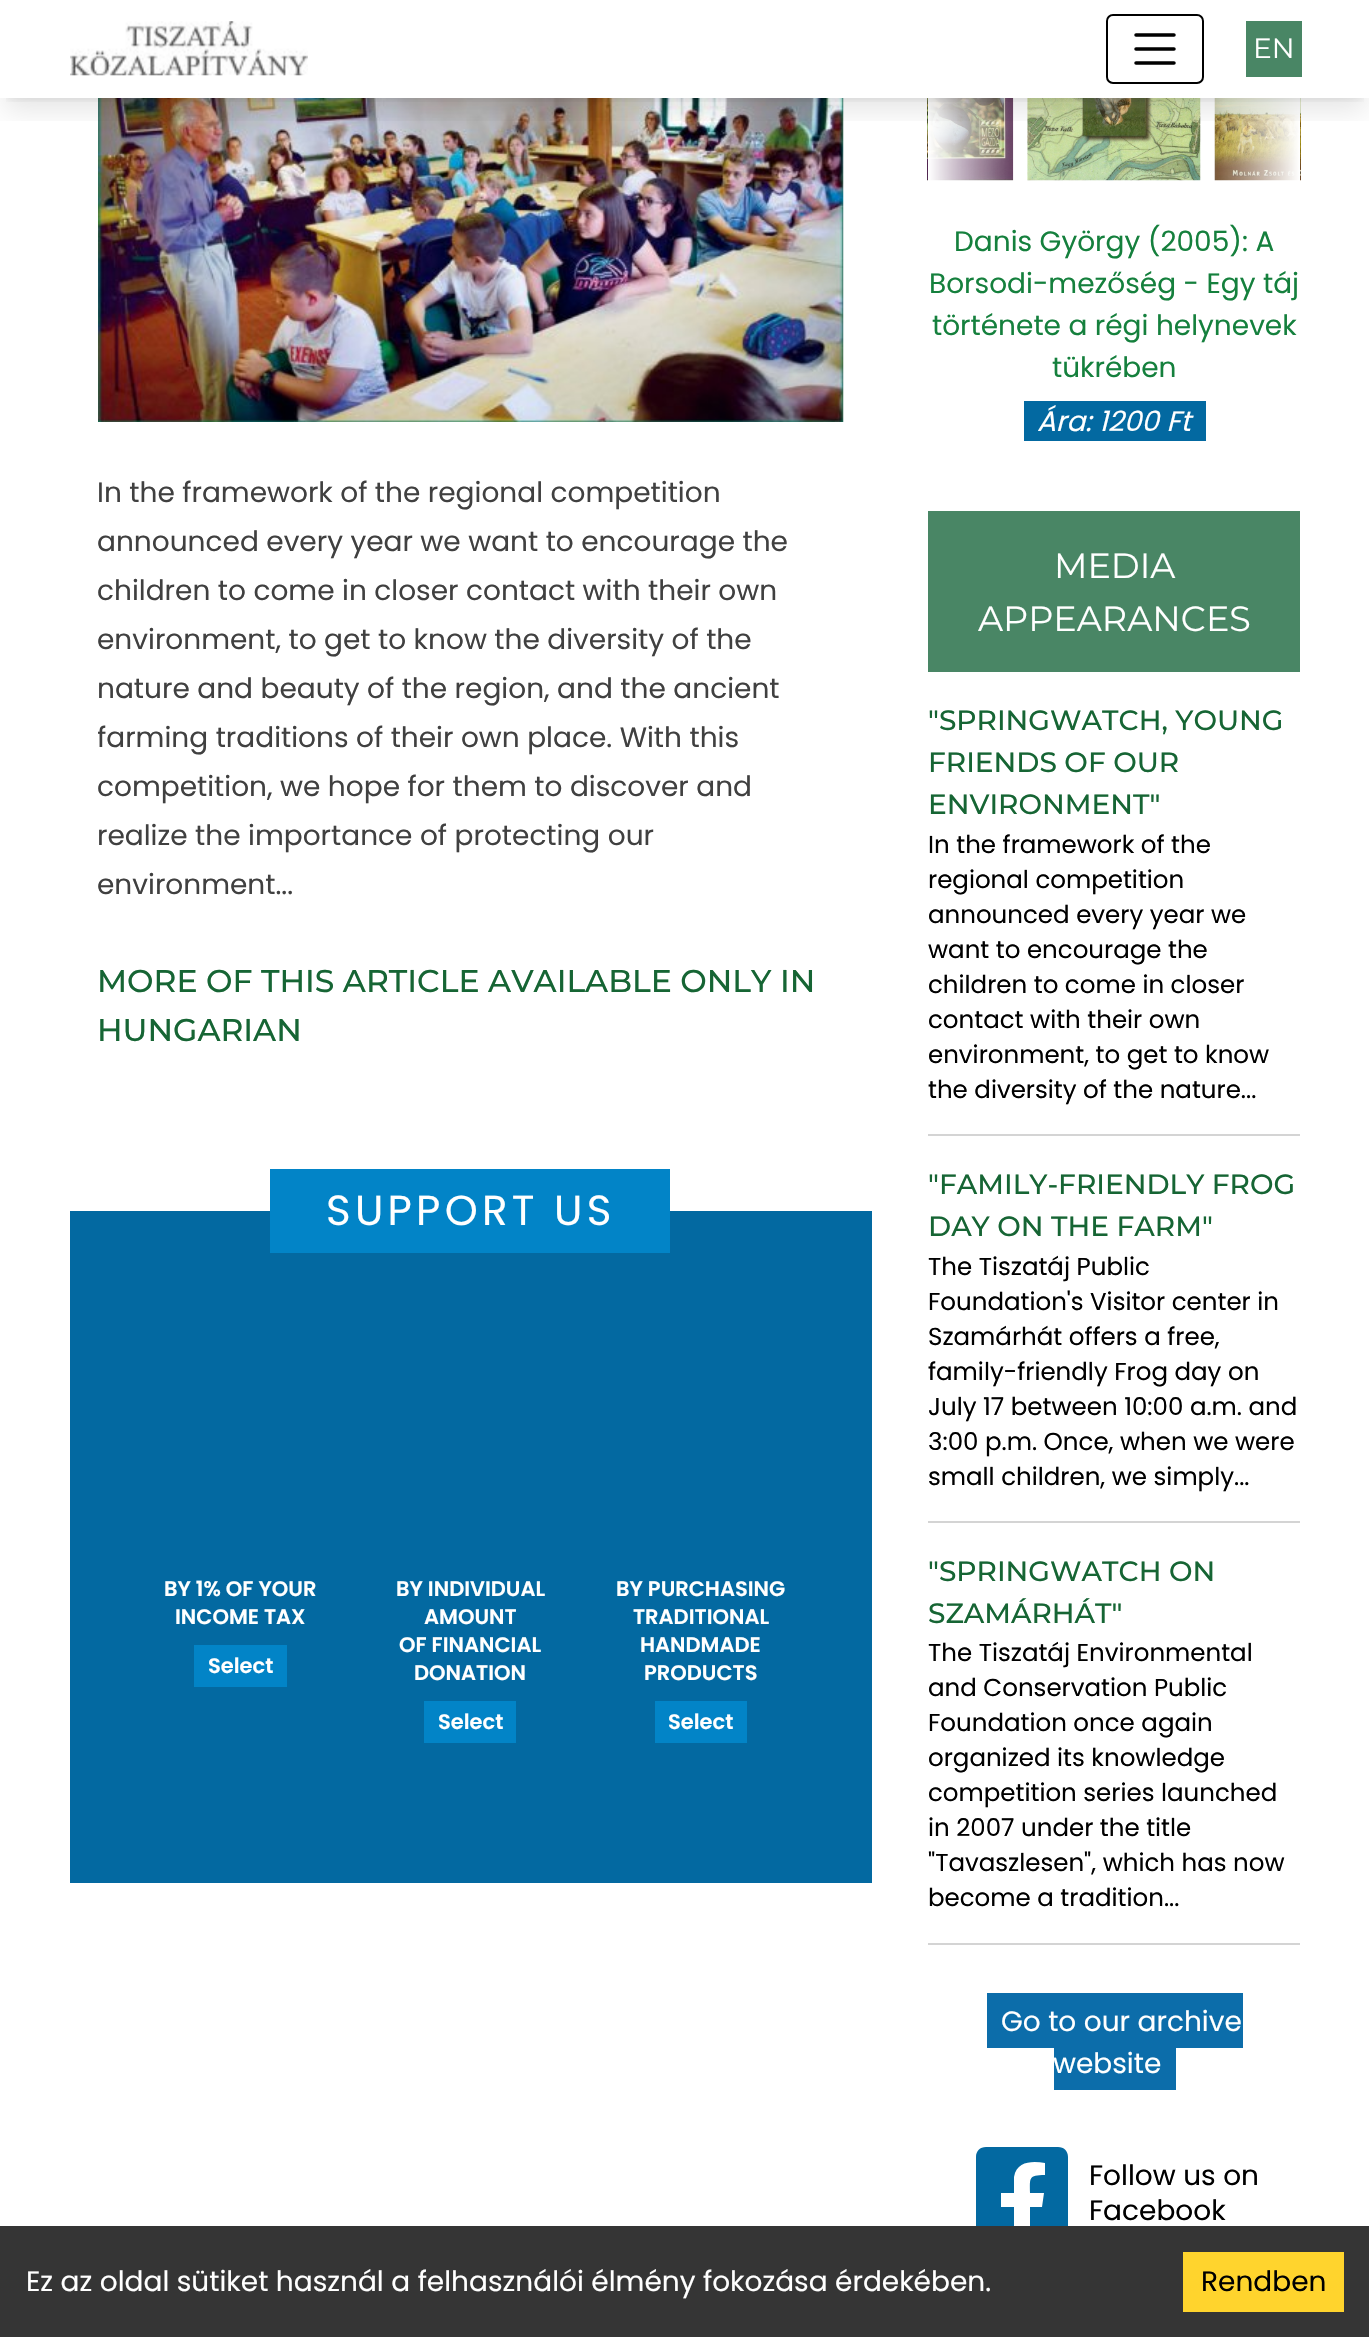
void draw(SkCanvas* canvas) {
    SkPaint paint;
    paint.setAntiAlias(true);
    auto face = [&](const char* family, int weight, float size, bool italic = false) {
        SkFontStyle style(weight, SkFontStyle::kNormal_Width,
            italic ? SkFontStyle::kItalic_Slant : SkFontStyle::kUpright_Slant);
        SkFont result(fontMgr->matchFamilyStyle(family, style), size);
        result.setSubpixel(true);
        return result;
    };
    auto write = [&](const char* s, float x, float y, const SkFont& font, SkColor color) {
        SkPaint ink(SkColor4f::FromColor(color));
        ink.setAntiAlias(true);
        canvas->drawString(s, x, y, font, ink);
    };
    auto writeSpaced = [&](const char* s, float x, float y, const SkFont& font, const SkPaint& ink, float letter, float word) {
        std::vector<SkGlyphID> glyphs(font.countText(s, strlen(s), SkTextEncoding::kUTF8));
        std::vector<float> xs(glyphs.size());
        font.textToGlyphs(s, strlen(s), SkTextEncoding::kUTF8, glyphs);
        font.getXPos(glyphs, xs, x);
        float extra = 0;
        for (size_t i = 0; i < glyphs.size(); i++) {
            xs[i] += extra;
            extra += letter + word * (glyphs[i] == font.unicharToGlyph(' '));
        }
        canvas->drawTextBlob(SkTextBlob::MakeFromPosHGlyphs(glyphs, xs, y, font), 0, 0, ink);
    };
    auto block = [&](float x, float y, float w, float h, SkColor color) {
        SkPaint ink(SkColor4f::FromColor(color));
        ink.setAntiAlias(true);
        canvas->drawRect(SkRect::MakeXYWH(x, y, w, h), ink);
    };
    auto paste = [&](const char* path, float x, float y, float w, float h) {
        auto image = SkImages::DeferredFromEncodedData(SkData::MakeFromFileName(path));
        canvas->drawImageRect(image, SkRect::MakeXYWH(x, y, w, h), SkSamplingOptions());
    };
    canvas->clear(SK_ColorWHITE);
    paste("pic2.png", 98, 98, 746, 324);
    paste("pic3.png", 927, 98, 87, 83);
    paste("pic4.png", 1027, 98, 174, 83);
    paste("pic5.png", 1214, 98, 87, 83);
    {
        const SkColor colors[] = {SK_ColorWHITE, SkColorSetARGB(0, 255, 255, 255)};
        const float stops[] = {0, 1};
        const SkPoint ends[] = {{928, 62}, {1020, 62}};
        paint.setShader(SkGradientShader::MakeLinear(ends, colors, stops, 2, SkTileMode::kClamp));
        paint.setAlpha(255);
    }
    canvas->drawRect(SkRect::MakeXYWH(928, 98, 85, 83), paint);
    {
        const SkColor colors[] = {SK_ColorWHITE, SkColorSetARGB(0, 255, 255, 255)};
        const float stops[] = {0, 1};
        const SkPoint ends[] = {{1300, 62}, {1208, 62}};
        paint.setShader(SkGradientShader::MakeLinear(ends, colors, stops, 2, SkTileMode::kClamp));
        paint.setAlpha(255);
    }
    canvas->drawRect(SkRect::MakeXYWH(1214, 98, 86, 83), paint);
    canvas->save();
    canvas->clipRect(SkRect::MakeXYWH(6, 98, 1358, 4));
    paint.setShader(nullptr);
    paint.setColor(SkColorSetARGB(26, 0, 0, 0));
    paint.setMaskFilter(SkMaskFilter::MakeBlur(kNormal_SkBlurStyle, 5));
    canvas->drawRect(SkRect::MakeXYWH(7, 14, 1356, 84), paint);
    paint.setMaskFilter(nullptr);
    canvas->restore();
    canvas->save();
    canvas->clipRect(SkRect::MakeXYWH(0, 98, 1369, 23));
    paint.setMaskFilter(SkMaskFilter::MakeBlur(kNormal_SkBlurStyle, 13));
    canvas->drawRect(SkRect::MakeXYWH(5, 23, 1360, 87), paint);
    paint.setMaskFilter(nullptr);
    canvas->restore();
    paste("pic1.png", 70, 21, 238, 55);
    paint.setStyle(SkPaint::kStroke_Style);
    paint.setStrokeWidth(2);
    paint.setColor(SK_ColorBLACK);
    canvas->drawRoundRect(SkRect::MakeXYWH(1107, 15, 96, 68), 6, 6, paint);
    paint.setStrokeWidth(3.5f);
    paint.setStrokeCap(SkPaint::kRound_Cap);
    canvas->drawPath(SkPathBuilder().moveTo(1136, 35).lineTo(1174, 35).moveTo(1136, 49).lineTo(1174, 49).moveTo(1136, 63).lineTo(1174, 63).detach(), paint);
    block(1246, 21, 56, 56, SkColorSetRGB(73, 134, 101));
    auto kFont1 = face("Montserrat", 400, 28);
    write("EN", 1253, 58, kFont1, SK_ColorWHITE);
    auto kFont2 = face("Poppins", 400, 28);
    write("In the framework of the regional competition", 97, 502, kFont2, SkColorSetRGB(64, 64, 64));
    write("announced every year we want to encourage the", 97, 551, kFont2, SkColorSetRGB(64, 64, 64));
    write("children to come in closer contact with their own", 97, 600, kFont2, SkColorSetRGB(64, 64, 64));
    write("environment, to get to know the diversity of the", 97, 649, kFont2, SkColorSetRGB(64, 64, 64));
    write("nature and beauty of the region, and the ancient", 97, 698, kFont2, SkColorSetRGB(64, 64, 64));
    canvas->save();
    canvas->clipRect(SkRect::MakeXYWH(98, 37, 746, 1062));
    write("farming traditions of their own place. With this", 97, 747, kFont2, SkColorSetRGB(64, 64, 64));
    canvas->restore();
    write("competition, we hope for them to discover and", 97, 796, kFont2, SkColorSetRGB(64, 64, 64));
    write("realize the importance of protecting our", 97, 845, kFont2, SkColorSetRGB(64, 64, 64));
    write("environment...", 97, 894, kFont2, SkColorSetRGB(64, 64, 64));
    auto kFont3 = face("Montserrat", 500, 31.5f);
    write("MORE OF THIS ARTICLE AVAILABLE ONLY IN", 97, 992, kFont3, SkColorSetRGB(22, 101, 52));
    write("HUNGARIAN", 97, 1041, kFont3, SkColorSetRGB(22, 101, 52));
    block(70, 1211, 802, 672, SkColorSetRGB(3, 105, 161));
    block(270, 1169, 400, 84, SkColorSetRGB(2, 132, 199));
    auto kFont4 = face("Poppins", 400, 42);
    paint.setStyle(SkPaint::kFill_Style);
    paint.setColor(SK_ColorWHITE);
    writeSpaced("SUPPORT US", 326, 1225, kFont4, paint, 4.25f, 0);
    auto kFont5 = face("Poppins", 600, 21);
    write("BY 1% OF YOUR", 164, 1596, kFont5, SK_ColorWHITE);
    write("INCOME TAX", 175, 1624, kFont5, SK_ColorWHITE);
    block(194, 1645, 93, 42, SkColorSetRGB(2, 132, 199));
    write("Select", 208, 1673, kFont5, SK_ColorWHITE);
    write("BY INDIVIDUAL", 396, 1596, kFont5, SK_ColorWHITE);
    write("AMOUNT", 424, 1624, kFont5, SK_ColorWHITE);
    write("OF FINANCIAL", 399, 1652, kFont5, SK_ColorWHITE);
    write("DONATION", 414, 1680, kFont5, SK_ColorWHITE);
    block(424, 1701, 92, 42, SkColorSetRGB(2, 132, 199));
    write("Select", 438, 1729, kFont5, SK_ColorWHITE);
    write("BY PURCHASING", 616, 1596, kFont5, SK_ColorWHITE);
    write("TRADITIONAL", 633, 1624, kFont5, SK_ColorWHITE);
    write("HANDMADE", 640, 1652, kFont5, SK_ColorWHITE);
    write("PRODUCTS", 644, 1680, kFont5, SK_ColorWHITE);
    block(655, 1701, 92, 42, SkColorSetRGB(2, 132, 199));
    write("Select", 668, 1729, kFont5, SK_ColorWHITE);
    write("Danis György (2005): A", 954, 251, kFont2, SkColorSetRGB(21, 128, 61));
    write("Borsodi-mezőség - Egy táj", 929, 293, kFont2, SkColorSetRGB(21, 128, 61));
    write("története a régi helynevek", 932, 335, kFont2, SkColorSetRGB(21, 128, 61));
    write("tükrében", 1052, 377, kFont2, SkColorSetRGB(21, 128, 61));
    block(1024, 401, 182, 40, SkColorSetRGB(3, 105, 161));
    auto kFont6 = face("Poppins", 400, 28, true);
    write("Ára: 1200 Ft", 1037, 431, kFont6, SK_ColorWHITE);
    block(928, 511, 372, 161, SkColorSetRGB(73, 134, 101));
    auto kFont7 = face("Montserrat", 400, 35);
    write("MEDIA", 1054, 578, kFont7, SK_ColorWHITE);
    write("APPEARANCES", 978, 631, kFont7, SK_ColorWHITE);
    block(928, 1134, 372, 2, SkColorSetRGB(212, 212, 212));
    auto kFont8 = face("Montserrat", 500, 28);
    write("\"SPRINGWATCH, YOUNG", 928, 730, kFont8, SkColorSetRGB(22, 101, 52));
    write("FRIENDS OF OUR", 928, 772, kFont8, SkColorSetRGB(22, 101, 52));
    write("ENVIRONMENT\"", 928, 814, kFont8, SkColorSetRGB(22, 101, 52));
    auto kFont9 = face("Poppins", 400, 24.5f);
    write("In the framework of the", 928, 853, kFont9, SK_ColorBLACK);
    write("regional competition", 928, 888, kFont9, SK_ColorBLACK);
    write("announced every year we", 928, 923, kFont9, SK_ColorBLACK);
    write("want to encourage the", 928, 958, kFont9, SK_ColorBLACK);
    write("children to come in closer", 928, 993, kFont9, SK_ColorBLACK);
    write("contact with their own", 928, 1028, kFont9, SK_ColorBLACK);
    write("environment, to get to know", 928, 1063, kFont9, SK_ColorBLACK);
    write("the diversity of the nature...", 928, 1098, kFont9, SK_ColorBLACK);
    block(928, 1521, 372, 2, SkColorSetRGB(212, 212, 212));
    write("\"FAMILY-FRIENDLY FROG", 928, 1194, kFont8, SkColorSetRGB(22, 101, 52));
    write("DAY ON THE FARM\"", 928, 1236, kFont8, SkColorSetRGB(22, 101, 52));
    write("The Tiszatáj Public", 928, 1275, kFont9, SK_ColorBLACK);
    write("Foundation's Visitor center in", 928, 1310, kFont9, SK_ColorBLACK);
    write("Szamárhát offers a free,", 928, 1345, kFont9, SK_ColorBLACK);
    write("family-friendly Frog day on", 928, 1380, kFont9, SK_ColorBLACK);
    write("July 17 between 10:00 a.m. and", 928, 1415, kFont9, SK_ColorBLACK);
    write("3:00 p.m. Once, when we were", 928, 1450, kFont9, SK_ColorBLACK);
    write("small children, we simply...", 928, 1485, kFont9, SK_ColorBLACK);
    block(928, 1943, 372, 2, SkColorSetRGB(212, 212, 212));
    write("\"SPRINGWATCH ON", 928, 1581, kFont8, SkColorSetRGB(22, 101, 52));
    write("SZAMÁRHÁT\"", 928, 1623, kFont8, SkColorSetRGB(22, 101, 52));
    write("The Tiszatáj Environmental", 928, 1661, kFont9, SK_ColorBLACK);
    write("and Conservation Public", 928, 1696, kFont9, SK_ColorBLACK);
    write("Foundation once again", 928, 1731, kFont9, SK_ColorBLACK);
    write("organized its knowledge", 928, 1766, kFont9, SK_ColorBLACK);
    write("competition series launched", 928, 1801, kFont9, SK_ColorBLACK);
    write("in 2007 under the title", 928, 1836, kFont9, SK_ColorBLACK);
    write("\"Tavaszlesen\", which has now", 928, 1871, kFont9, SK_ColorBLACK);
    write("become a tradition...", 928, 1906, kFont9, SK_ColorBLACK);
    block(987, 1993, 256, 55, SkColorSetRGB(12, 109, 170));
    write("Go to our archive", 1001, 2031, kFont2, SK_ColorWHITE);
    block(1054, 2048, 122, 42, SkColorSetRGB(12, 109, 170));
    write("website", 1053, 2073, kFont2, SK_ColorWHITE);
    paint.setColor(SkColorSetRGB(3, 105, 161));
    canvas->drawPath(SkPathBuilder().moveTo(1058, 2147).lineTo(986, 2147).cubicTo(980, 2147, 976, 2151, 976, 2157).lineTo(976, 2229).cubicTo(976, 2234, 980, 2239, 986, 2239).lineTo(1014, 2239).lineTo(1014, 2207).lineTo(1001, 2207).lineTo(1001, 2193).lineTo(1014, 2193).lineTo(1014, 2177).cubicTo(1017, 2161, 1032, 2161, 1045, 2163).lineTo(1045, 2175).cubicTo(1028, 2175, 1030, 2178, 1030, 2193).lineTo(1044, 2193).lineTo(1042, 2207).lineTo(1030, 2207).lineTo(1030, 2239).lineTo(1058, 2239).cubicTo(1064, 2239, 1068, 2234, 1068, 2229).lineTo(1068, 2157).cubicTo(1068, 2151, 1064, 2147, 1058, 2147).close().detach(), paint);
    write("Follow us on", 1089, 2185, kFont2, SK_ColorBLACK);
    write("Facebook", 1089, 2220, kFont2, SK_ColorBLACK);
    block(0, 2226, 1369, 111, SkColorSetRGB(53, 53, 53));
    write("Ez az oldal sütiket használ a felhasználói élmény fokozása érdekében.", 26, 2291, kFont2, SK_ColorWHITE);
    block(1183, 2252, 161, 60, SkColorSetRGB(255, 212, 45));
    write("Rendben", 1201, 2291, kFont2, SK_ColorBLACK);
}
